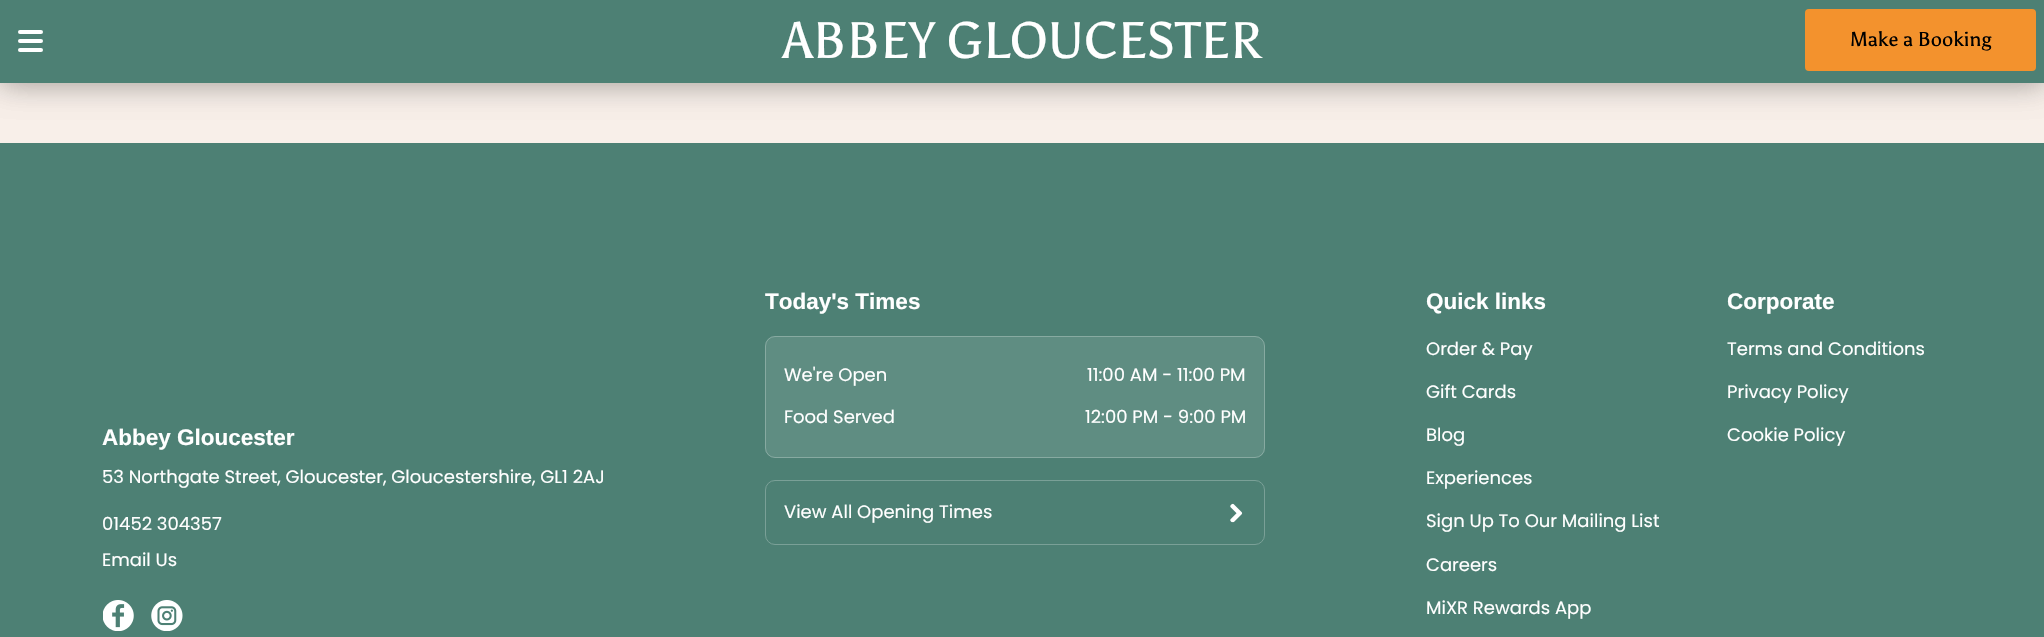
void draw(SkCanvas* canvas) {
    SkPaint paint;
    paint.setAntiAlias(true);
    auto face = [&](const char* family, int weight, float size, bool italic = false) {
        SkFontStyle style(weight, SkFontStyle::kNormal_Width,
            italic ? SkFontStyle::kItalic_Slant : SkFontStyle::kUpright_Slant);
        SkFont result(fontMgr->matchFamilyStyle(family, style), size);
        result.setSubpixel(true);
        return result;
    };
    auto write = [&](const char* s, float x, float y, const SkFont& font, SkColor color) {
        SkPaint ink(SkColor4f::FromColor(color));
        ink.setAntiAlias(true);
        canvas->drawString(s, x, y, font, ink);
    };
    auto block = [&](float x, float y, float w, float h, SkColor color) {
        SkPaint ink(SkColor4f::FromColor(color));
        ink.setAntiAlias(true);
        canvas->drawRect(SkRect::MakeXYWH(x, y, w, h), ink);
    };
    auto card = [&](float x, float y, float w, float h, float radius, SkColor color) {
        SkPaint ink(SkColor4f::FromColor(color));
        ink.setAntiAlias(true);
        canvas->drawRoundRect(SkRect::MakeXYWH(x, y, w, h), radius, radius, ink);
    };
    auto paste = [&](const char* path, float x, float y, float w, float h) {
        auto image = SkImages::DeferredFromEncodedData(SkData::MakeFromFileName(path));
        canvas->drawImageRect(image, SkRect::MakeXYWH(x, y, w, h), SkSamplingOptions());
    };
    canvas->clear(SkColorSetRGB(248, 239, 233));
    paint.setColor(SkColorSetARGB(51, 0, 0, 0));
    paint.setMaskFilter(SkMaskFilter::MakeBlur(kNormal_SkBlurStyle, 15.5f));
    canvas->drawRect(SkRect::MakeXYWH(0, 0, 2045, 83), paint);
    paint.setMaskFilter(nullptr);
    paint.setMaskFilter(SkMaskFilter::MakeBlur(kNormal_SkBlurStyle, 15.5f));
    canvas->drawRect(SkRect::MakeXYWH(0, 0, 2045, 83), paint);
    paint.setMaskFilter(nullptr);
    block(0, 0, 2044, 83, SkColorSetRGB(77, 128, 116));
    card(18, 30, 25, 4, 2, SK_ColorWHITE);
    card(18, 39, 25, 4, 2, SK_ColorWHITE);
    card(18, 48, 25, 4, 2, SK_ColorWHITE);
    auto kFont1 = face("Asul", 400, 51.1f);
    write("ABBEY GLOUCESTER", 783, 58, kFont1, SK_ColorWHITE);
    card(1805, 9, 231, 62, 4, SkColorSetRGB(243, 146, 45));
    auto kFont2 = face("Asul", 400, 20);
    write("Make a Booking", 1850, 46, kFont2, SK_ColorBLACK);
    block(0, 143, 2044, 494, SkColorSetRGB(77, 128, 116));
    auto kFont3 = face("Liberation Sans", 700, 22.5f);
    write("Abbey Gloucester", 102, 445, kFont3, SK_ColorWHITE);
    auto kFont4 = face("Poppins", 400, 18);
    write("53 Northgate Street, Gloucester, Gloucestershire, GL1 2AJ", 102, 483, kFont4, SK_ColorWHITE);
    write("01452 304357", 102, 530, kFont4, SK_ColorWHITE);
    write("Email Us", 102, 566, kFont4, SK_ColorWHITE);
    paste("pic1.png", 103, 600, 31, 31);
    paste("pic2.png", 151, 600, 32, 31);
    write("Today's Times", 765, 309, kFont3, SK_ColorWHITE);
    card(765, 336, 500, 122, 10, SkColorSetRGB(95, 141, 130));
    paint.setStyle(SkPaint::kStroke_Style);
    paint.setStrokeWidth(1);
    paint.setColor(SkColorSetARGB(64, 255, 255, 255));
    canvas->drawRoundRect(SkRect::MakeXYWH(765.5f, 336.5f, 499, 121), 9.5f, 9.5f, paint);
    write("We're Open", 784, 381, kFont4, SK_ColorWHITE);
    write("11:00 AM - 11:00 PM", 1087, 381, kFont4, SK_ColorWHITE);
    write("Food Served", 784, 423, kFont4, SK_ColorWHITE);
    write("12:00 PM - 9:00 PM", 1085, 423, kFont4, SK_ColorWHITE);
    paint.setColor(SkColorSetRGB(122, 160, 151));
    canvas->drawRoundRect(SkRect::MakeXYWH(765.5f, 480.5f, 499, 64), 9.5f, 9.5f, paint);
    write("View All Opening Times", 784, 518, kFont4, SK_ColorWHITE);
    paste("pic3.png", 1230, 503, 13, 20);
    write("Quick links", 1426, 309, kFont3, SK_ColorWHITE);
    write("Order & Pay", 1426, 355, kFont4, SK_ColorWHITE);
    write("Gift Cards", 1426, 398, kFont4, SK_ColorWHITE);
    write("Blog", 1426, 441, kFont4, SK_ColorWHITE);
    write("Experiences", 1426, 484, kFont4, SK_ColorWHITE);
    write("Sign Up To Our Mailing List", 1426, 527, kFont4, SK_ColorWHITE);
    write("Careers", 1426, 571, kFont4, SK_ColorWHITE);
    write("MiXR Rewards App", 1426, 614, kFont4, SK_ColorWHITE);
    write("Corporate", 1727, 309, kFont3, SK_ColorWHITE);
    write("Terms and Conditions", 1727, 355, kFont4, SK_ColorWHITE);
    write("Privacy Policy", 1727, 398, kFont4, SK_ColorWHITE);
    write("Cookie Policy", 1727, 441, kFont4, SK_ColorWHITE);
}
